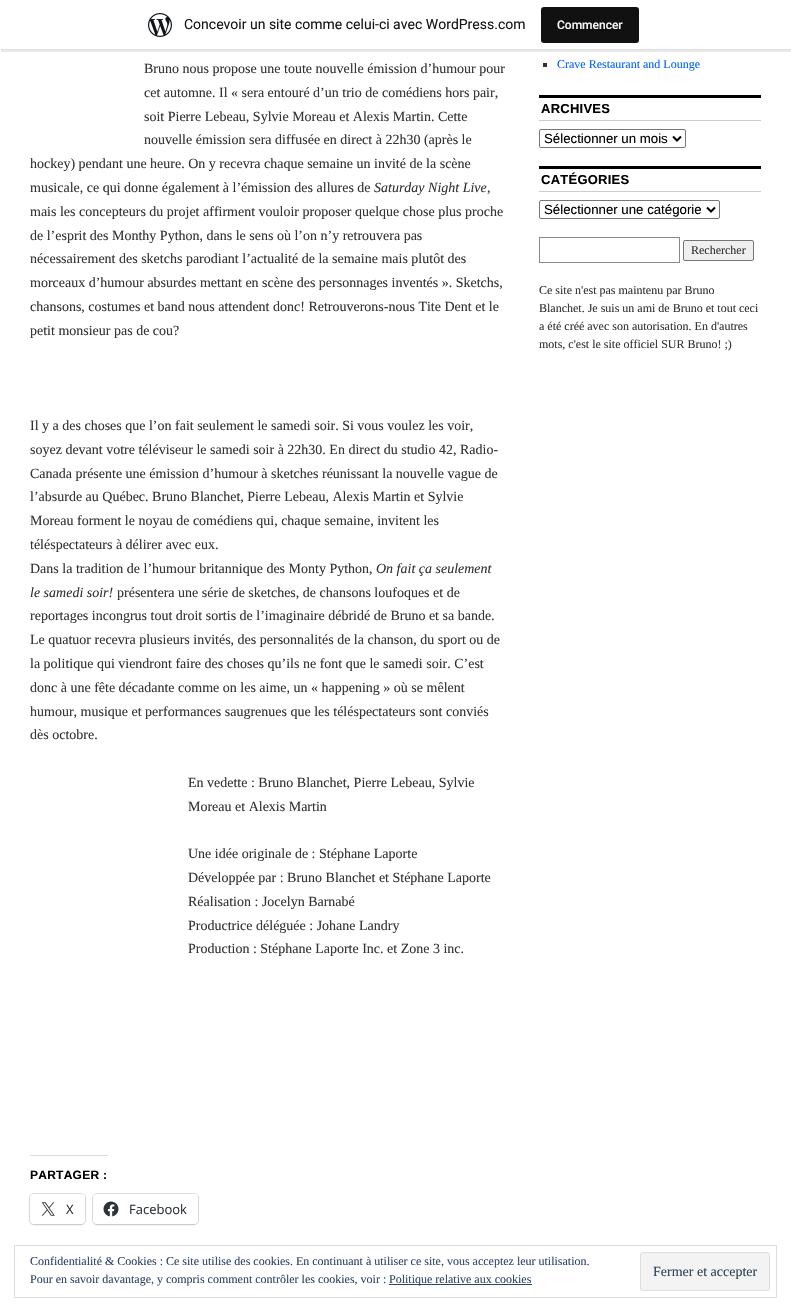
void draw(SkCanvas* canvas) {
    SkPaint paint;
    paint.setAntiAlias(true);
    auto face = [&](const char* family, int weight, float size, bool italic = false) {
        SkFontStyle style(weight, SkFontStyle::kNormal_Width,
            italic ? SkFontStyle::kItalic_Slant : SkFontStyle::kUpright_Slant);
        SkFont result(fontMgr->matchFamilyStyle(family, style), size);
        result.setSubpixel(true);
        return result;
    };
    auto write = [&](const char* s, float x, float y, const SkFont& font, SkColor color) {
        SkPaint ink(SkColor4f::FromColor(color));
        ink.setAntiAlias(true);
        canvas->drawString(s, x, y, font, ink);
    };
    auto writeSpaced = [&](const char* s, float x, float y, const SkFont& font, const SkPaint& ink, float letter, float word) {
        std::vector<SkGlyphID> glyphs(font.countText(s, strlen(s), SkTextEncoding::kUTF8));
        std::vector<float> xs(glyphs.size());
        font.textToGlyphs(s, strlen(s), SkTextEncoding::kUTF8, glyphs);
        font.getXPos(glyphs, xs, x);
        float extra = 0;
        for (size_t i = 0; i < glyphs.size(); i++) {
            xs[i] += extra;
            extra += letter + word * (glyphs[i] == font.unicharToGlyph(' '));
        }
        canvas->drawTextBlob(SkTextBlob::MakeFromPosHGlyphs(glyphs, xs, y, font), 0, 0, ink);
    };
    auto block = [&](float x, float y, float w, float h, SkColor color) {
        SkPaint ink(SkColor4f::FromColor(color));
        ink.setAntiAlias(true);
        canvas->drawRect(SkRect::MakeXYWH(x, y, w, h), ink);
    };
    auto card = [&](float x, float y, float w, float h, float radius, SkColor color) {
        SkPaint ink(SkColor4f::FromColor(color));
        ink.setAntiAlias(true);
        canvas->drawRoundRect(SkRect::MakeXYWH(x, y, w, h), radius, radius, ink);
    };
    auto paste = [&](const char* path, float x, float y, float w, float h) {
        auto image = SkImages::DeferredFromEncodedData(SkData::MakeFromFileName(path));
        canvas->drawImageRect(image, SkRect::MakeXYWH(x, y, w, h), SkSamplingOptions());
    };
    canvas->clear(SK_ColorWHITE);
    paint.setColor(SkColorSetARGB(13, 0, 0, 0));
    paint.setMaskFilter(SkMaskFilter::MakeBlur(kNormal_SkBlurStyle, 1));
    canvas->drawRect(SkRect::MakeXYWH(0, 1, 791, 49), paint);
    paint.setMaskFilter(nullptr);
    paint.setColor(SkColorSetARGB(20, 0, 0, 0));
    canvas->drawPath(SkPathBuilder().moveTo(1, 49).lineTo(1, 52).lineTo(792, 52).lineTo(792, 3).lineTo(791, 3).lineTo(791, 49).close().detach(), paint);
    block(0, 0, 791, 49, SK_ColorWHITE);
    paste("pic1.png", 148, 13, 24, 24);
    auto kFont1 = face("Roboto", 400, 14);
    write("Concevoir un site comme celui-ci avec WordPress.com", 184, 29, kFont1, SkColorSetRGB(23, 23, 23));
    card(541, 7, 98, 36, 3, SkColorSetRGB(17, 17, 17));
    auto kFont2 = face("Roboto", 500, 12);
    write("Commencer", 557, 29, kFont2, SkColorSetRGB(246, 247, 247));
    auto kFont3 = face("Liberation Serif", 400, 14);
    write("Bruno nous propose une toute nouvelle émission d’humour pour", 144, 73, kFont3, SkColorSetRGB(51, 51, 51));
    write("cet automne. Il « sera entouré d’un trio de comédiens hors pair,", 144, 97, kFont3, SkColorSetRGB(51, 51, 51));
    write("soit Pierre Lebeau, Sylvie Moreau et Alexis Martin. Cette", 144, 121, kFont3, SkColorSetRGB(51, 51, 51));
    write("nouvelle émission sera diffusée en direct à 22h30 (après le", 144, 144, kFont3, SkColorSetRGB(51, 51, 51));
    write("hockey) pendant une heure. On y recevra chaque semaine un invité de la scène", 30, 168, kFont3, SkColorSetRGB(51, 51, 51));
    write("musicale, ce qui donne également à l’émission des allures de", 30, 192, kFont3, SkColorSetRGB(51, 51, 51));
    auto kFont4 = face("Liberation Serif", 400, 14, true);
    write("Saturday Night Live", 374, 192, kFont4, SkColorSetRGB(51, 51, 51));
    write(",", 487, 192, kFont3, SkColorSetRGB(51, 51, 51));
    write("mais les concepteurs du projet affirment vouloir proposer quelque chose plus proche", 30, 216, kFont3, SkColorSetRGB(51, 51, 51));
    write("de l’esprit des Monthy Python, dans le sens où l’on n’y retrouvera pas", 30, 240, kFont3, SkColorSetRGB(51, 51, 51));
    write("nécessairement des sketchs parodiant l’actualité de la semaine mais plutôt des", 30, 263, kFont3, SkColorSetRGB(51, 51, 51));
    write("morceaux d’humour absurdes mettant en scène des personnages inventés ». Sketchs,", 30, 287, kFont3, SkColorSetRGB(51, 51, 51));
    write("chansons, costumes et band nous attendent donc! Retrouverons-nous Tite Dent et le", 30, 311, kFont3, SkColorSetRGB(51, 51, 51));
    write("petit monsieur pas de cou?", 30, 335, kFont3, SkColorSetRGB(51, 51, 51));
    write("Il y a des choses que l’on fait seulement le samedi soir. Si vous voulez les voir,", 30, 430, kFont3, SkColorSetRGB(51, 51, 51));
    write("soyez devant votre téléviseur le samedi soir à 22h30. En direct du studio 42, Radio-", 30, 454, kFont3, SkColorSetRGB(51, 51, 51));
    write("Canada présente une émission d’humour à sketches réunissant la nouvelle vague de", 30, 478, kFont3, SkColorSetRGB(51, 51, 51));
    write("l’absurde au Québec. Bruno Blanchet, Pierre Lebeau, Alexis Martin et Sylvie", 30, 501, kFont3, SkColorSetRGB(51, 51, 51));
    write("Moreau forment le noyau de comédiens qui, chaque semaine, invitent les", 30, 525, kFont3, SkColorSetRGB(51, 51, 51));
    write("téléspectateurs à délirer avec eux.", 30, 549, kFont3, SkColorSetRGB(51, 51, 51));
    write("Dans la tradition de l’humour britannique des Monty Python,", 30, 573, kFont3, SkColorSetRGB(51, 51, 51));
    write("On fait ça seulement", 376, 573, kFont4, SkColorSetRGB(51, 51, 51));
    write("le samedi soir!", 30, 597, kFont4, SkColorSetRGB(51, 51, 51));
    write("présentera une série de sketches, de chansons loufoques et de", 117, 597, kFont3, SkColorSetRGB(51, 51, 51));
    write("reportages incongrus tout droit sortis de l’imaginaire débridé de Bruno et sa bande.", 30, 620, kFont3, SkColorSetRGB(51, 51, 51));
    write("Le quatuor recevra plusieurs invités, des personnalités de la chanson, du sport ou de", 30, 644, kFont3, SkColorSetRGB(51, 51, 51));
    write("la politique qui viendront faire des choses qu’ils ne font que le samedi soir. C’est", 30, 668, kFont3, SkColorSetRGB(51, 51, 51));
    write("donc à une fête décadante comme on les aime, un « happening » où se mêlent", 30, 692, kFont3, SkColorSetRGB(51, 51, 51));
    write("humour, musique et performances saugrenues que les téléspectateurs sont conviés", 30, 716, kFont3, SkColorSetRGB(51, 51, 51));
    write("dès octobre.", 30, 739, kFont3, SkColorSetRGB(51, 51, 51));
    write("En vedette : Bruno Blanchet, Pierre Lebeau, Sylvie", 188, 787, kFont3, SkColorSetRGB(51, 51, 51));
    write("Moreau et Alexis Martin", 188, 811, kFont3, SkColorSetRGB(51, 51, 51));
    write("Une idée originale de : Stéphane Laporte", 188, 858, kFont3, SkColorSetRGB(51, 51, 51));
    write("Développée par : Bruno Blanchet et Stéphane Laporte", 188, 882, kFont3, SkColorSetRGB(51, 51, 51));
    write("Réalisation : Jocelyn Barnabé", 188, 906, kFont3, SkColorSetRGB(51, 51, 51));
    write("Productrice déléguée : Johane Landry", 188, 930, kFont3, SkColorSetRGB(51, 51, 51));
    write("Production : Stéphane Laporte Inc. et Zone 3 inc.", 188, 953, kFont3, SkColorSetRGB(51, 51, 51));
    block(30, 1155, 78, 1, SkColorSetRGB(220, 220, 222));
    auto kFont5 = face("Liberation Sans", 700, 12);
    paint.setColor(SK_ColorBLACK);
    writeSpaced("PARTAGER :", 30, 1179, kFont5, paint, 0.25f, 0);
    paint.setStyle(SkPaint::kStroke_Style);
    paint.setStrokeWidth(1);
    paint.setColor(SkColorSetRGB(224, 224, 224));
    canvas->drawRoundRect(SkRect::MakeXYWH(29.5f, 1193.5f, 56, 31), 4.5f, 4.5f, paint);
    paint.setStyle(SkPaint::kFill_Style);
    paint.setColor(SkColorSetARGB(31, 0, 0, 0));
    paint.setMaskFilter(SkMaskFilter::MakeBlur(kNormal_SkBlurStyle, 1));
    canvas->drawRoundRect(SkRect::MakeXYWH(30, 1195, 55, 30), 4, 4, paint);
    paint.setMaskFilter(nullptr);
    card(30, 1194, 55, 30, 4, SK_ColorWHITE);
    paste("pic2.png", 41, 1202, 14, 14);
    auto kFont6 = face("Open Sans", 400, 13);
    write("X", 66, 1214, kFont6, SkColorSetRGB(44, 51, 56));
    paint.setStyle(SkPaint::kStroke_Style);
    paint.setColor(SkColorSetRGB(224, 224, 224));
    canvas->drawRoundRect(SkRect::MakeXYWH(92.5f, 1193.5f, 106, 31), 4.5f, 4.5f, paint);
    paint.setStyle(SkPaint::kFill_Style);
    paint.setColor(SkColorSetARGB(31, 0, 0, 0));
    paint.setMaskFilter(SkMaskFilter::MakeBlur(kNormal_SkBlurStyle, 1));
    canvas->drawRoundRect(SkRect::MakeXYWH(93, 1195, 105, 30), 4, 4, paint);
    paint.setMaskFilter(nullptr);
    card(93, 1194, 105, 30, 4, SK_ColorWHITE);
    paste("pic3.png", 103, 1201, 16, 16);
    write("Facebook", 129, 1214, kFont6, SkColorSetRGB(44, 51, 56));
    block(543, 63, 4, 4, SkColorSetRGB(51, 51, 51));
    auto kFont7 = face("Liberation Serif", 400, 12);
    write("Crave Restaurant and Lounge", 557, 68, kFont7, SkColorSetRGB(0, 96, 255));
    block(539, 95, 222, 3, SK_ColorBLACK);
    block(539, 120, 222, 1, SkColorSetRGB(204, 204, 204));
    auto kFont8 = face("Liberation Sans", 700, 13);
    paint.setColor(SK_ColorBLACK);
    writeSpaced("ARCHIVES", 541, 113, kFont8, paint, 0.25f, 0);
    paint.setStyle(SkPaint::kStroke_Style);
    paint.setColor(SkColorSetRGB(118, 118, 118));
    canvas->drawRoundRect(SkRect::MakeXYWH(539.5f, 129.5f, 146, 18), 1.5f, 1.5f, paint);
    paint.setStrokeWidth(2);
    paint.setColor(SK_ColorBLACK);
    canvas->drawPath(SkPathBuilder().moveTo(673, 136.5f).lineTo(677, 140.5f).lineTo(681, 136.5f).detach(), paint);
    auto kFont9 = face("Liberation Sans", 400, 13.25f);
    write("Sélectionner un mois", 544, 143, kFont9, SK_ColorBLACK);
    block(539, 166, 222, 3, SK_ColorBLACK);
    block(539, 191, 222, 1, SkColorSetRGB(204, 204, 204));
    paint.setStyle(SkPaint::kFill_Style);
    writeSpaced("CATÉGORIES", 541, 184, kFont8, paint, 0.25f, 0);
    paint.setStyle(SkPaint::kStroke_Style);
    paint.setStrokeWidth(1);
    paint.setColor(SkColorSetRGB(118, 118, 118));
    canvas->drawRoundRect(SkRect::MakeXYWH(539.5f, 200.5f, 180, 18), 1.5f, 1.5f, paint);
    paint.setStrokeWidth(2);
    paint.setColor(SK_ColorBLACK);
    canvas->drawPath(SkPathBuilder().moveTo(707, 207.5f).lineTo(711, 211.5f).lineTo(715, 207.5f).detach(), paint);
    write("Sélectionner une catégorie", 544, 214, kFont9, SK_ColorBLACK);
    paint.setStrokeWidth(1);
    paint.setColor(SkColorSetRGB(136, 136, 136));
    canvas->drawRect(SkRect::MakeXYWH(539.5f, 237.5f, 140, 25), paint);
    paint.setStyle(SkPaint::kFill_Style);
    paint.setColor(SkColorSetRGB(239, 239, 239));
    canvas->drawRoundRect(SkRect::MakeXYWH(683.5f, 240.5f, 70, 20), 1.5f, 1.5f, paint);
    paint.setStyle(SkPaint::kStroke_Style);
    paint.setColor(SkColorSetRGB(118, 118, 118));
    canvas->drawRoundRect(SkRect::MakeXYWH(683.5f, 240.5f, 70, 20), 1.5f, 1.5f, paint);
    write("Rechercher", 691, 254, kFont7, SkColorSetRGB(51, 51, 51));
    write("Ce site n'est pas maintenu par Bruno", 539, 294, kFont7, SkColorSetRGB(51, 51, 51));
    write("Blanchet. Je suis un ami de Bruno et tout ceci", 539, 312, kFont7, SkColorSetRGB(51, 51, 51));
    write("a été créé avec son autorisation. En d'autres", 539, 330, kFont7, SkColorSetRGB(51, 51, 51));
    write("mots, c'est le site officiel SUR Bruno! ;)", 539, 348, kFont7, SkColorSetRGB(51, 51, 51));
    paint.setColor(SkColorSetRGB(222, 222, 222));
    canvas->drawRect(SkRect::MakeXYWH(14.5f, 1245.5f, 762, 52), paint);
    write("Confidentialité & Cookies : Ce site utilise des cookies. En continuant à utiliser ce site, vous acceptez leur utilisation.", 30, 1265, kFont7, SkColorSetRGB(46, 68, 103));
    write("Pour en savoir davantage, y compris comment contrôler les cookies, voir :", 30, 1283, kFont7, SkColorSetRGB(46, 68, 103));
    block(389, 1284, 143, 1, SkColorSetRGB(46, 68, 103));
    write("Politique relative aux cookies", 389, 1283, kFont7, SkColorSetRGB(46, 68, 103));
    paint.setStyle(SkPaint::kFill_Style);
    paint.setColor(SkColorSetRGB(243, 243, 243));
    canvas->drawRoundRect(SkRect::MakeXYWH(640.5f, 1252.5f, 129, 38), 2.5f, 2.5f, paint);
    paint.setStyle(SkPaint::kStroke_Style);
    paint.setColor(SkColorSetRGB(222, 222, 222));
    canvas->drawRoundRect(SkRect::MakeXYWH(640.5f, 1252.5f, 129, 38), 2.5f, 2.5f, paint);
    write("Fermer et accepter", 653, 1276, kFont3, SkColorSetRGB(46, 68, 83));
}
